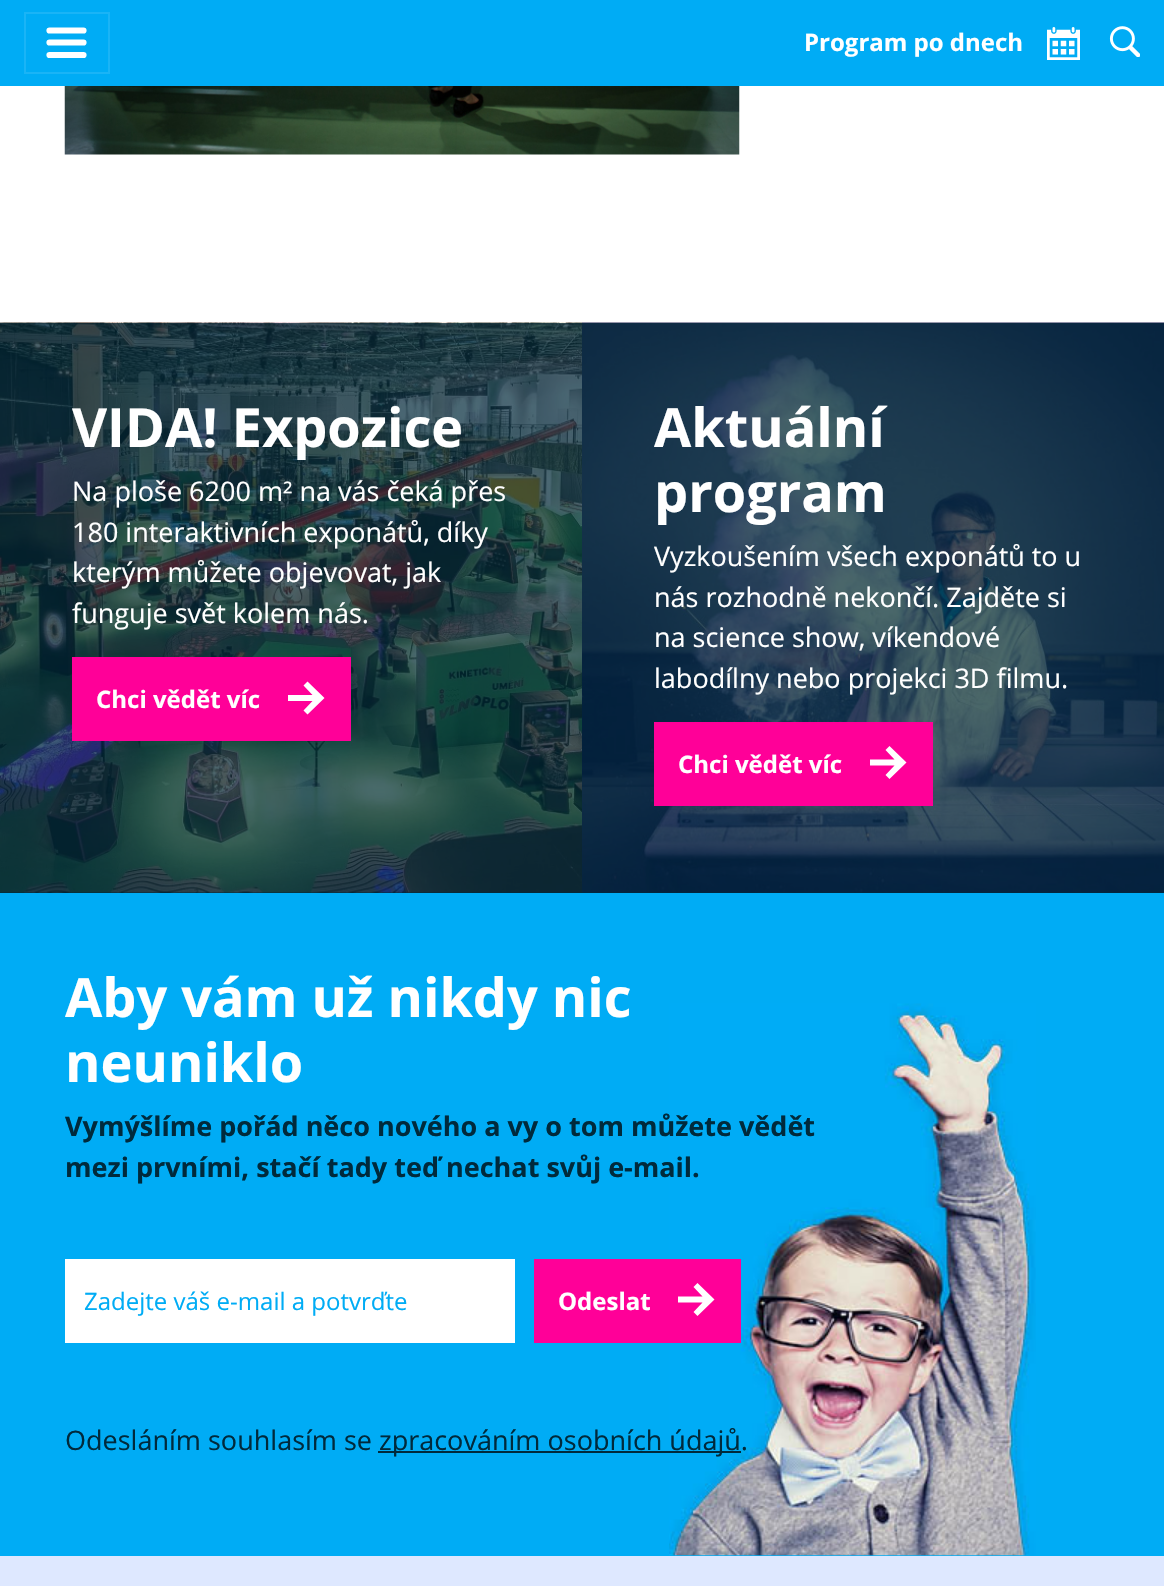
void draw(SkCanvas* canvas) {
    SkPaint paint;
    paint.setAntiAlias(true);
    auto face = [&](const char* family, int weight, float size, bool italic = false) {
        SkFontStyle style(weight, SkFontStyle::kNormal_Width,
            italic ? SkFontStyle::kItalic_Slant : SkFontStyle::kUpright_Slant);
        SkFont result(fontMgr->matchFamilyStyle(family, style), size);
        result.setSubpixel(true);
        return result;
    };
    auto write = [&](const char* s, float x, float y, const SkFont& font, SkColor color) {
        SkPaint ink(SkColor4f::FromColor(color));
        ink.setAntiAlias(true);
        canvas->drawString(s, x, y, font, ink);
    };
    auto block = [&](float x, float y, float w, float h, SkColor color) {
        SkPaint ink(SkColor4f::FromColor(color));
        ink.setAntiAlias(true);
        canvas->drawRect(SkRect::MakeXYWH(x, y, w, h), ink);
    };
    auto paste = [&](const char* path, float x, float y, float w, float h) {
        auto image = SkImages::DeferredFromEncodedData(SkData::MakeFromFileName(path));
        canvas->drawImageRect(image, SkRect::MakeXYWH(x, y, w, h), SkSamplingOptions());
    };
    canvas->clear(SK_ColorWHITE);
    block(0, 0, 1164, 86, SkColorSetRGB(0, 172, 245));
    paint.setStyle(SkPaint::kStroke_Style);
    paint.setStrokeWidth(2);
    paint.setColor(SkColorSetRGB(26, 180, 246));
    canvas->drawRect(SkRect::MakeXYWH(25, 13, 84, 60), paint);
    paint.setStrokeWidth(6.2f);
    paint.setStrokeCap(SkPaint::kRound_Cap);
    paint.setColor(SK_ColorWHITE);
    canvas->drawPath(SkPathBuilder().moveTo(49.5f, 30.5f).lineTo(83.5f, 30.5f).moveTo(49.5f, 42.5f).lineTo(83.5f, 42.5f).moveTo(49.5f, 55).lineTo(83.5f, 55).detach(), paint);
    auto kFont1 = face("Open Sans", 700, 24);
    write("Program po dnech", 804, 51, kFont1, SK_ColorWHITE);
    paste("pic1.png", 1047, 27, 33, 33);
    paste("pic2.png", 1109, 26, 31, 31);
    paste("pic3.png", 64, 86, 676, 69);
    block(0, 892, 1164, 1, SkColorSetRGB(0, 42, 60));
    paste("pic4.png", 0, 322, 582, 571);
    auto kFont2 = face("Open Sans", 700, 54);
    write("VIDA! Expozice", 72, 447, kFont2, SK_ColorWHITE);
    auto kFont3 = face("Open Sans", 400, 27);
    write("Na ploše 6200 m² na vás čeká přes", 72, 501, kFont3, SK_ColorWHITE);
    write("180 interaktivních exponátů, díky", 72, 542, kFont3, SK_ColorWHITE);
    write("kterým můžete objevovat, jak", 72, 582, kFont3, SK_ColorWHITE);
    write("funguje svět kolem nás.", 72, 623, kFont3, SK_ColorWHITE);
    block(72, 657, 279, 84, SkColorSetRGB(255, 0, 152));
    write("Chci vědět víc", 96, 708, kFont1, SK_ColorWHITE);
    paint.setStyle(SkPaint::kFill_Style);
    canvas->drawPath(SkPathBuilder().moveTo(307.5f, 681.5f).lineTo(303.5f, 685.5f).lineTo(312.5f, 695).lineTo(288, 695).lineTo(288, 701).lineTo(312.5f, 701).lineTo(303.5f, 710.5f).lineTo(307.5f, 714.5f).lineTo(324.5f, 698).close().detach(), paint);
    paste("pic5.png", 582, 322, 582, 571);
    write("Aktuální", 654, 447, kFont2, SK_ColorWHITE);
    write("program", 654, 512, kFont2, SK_ColorWHITE);
    write("Vyzkoušením všech exponátů to u", 654, 566, kFont3, SK_ColorWHITE);
    write("nás rozhodně nekončí. Zajděte si", 654, 607, kFont3, SK_ColorWHITE);
    write("na science show, víkendové", 654, 647, kFont3, SK_ColorWHITE);
    write("labodílny nebo projekci 3D filmu.", 654, 688, kFont3, SK_ColorWHITE);
    block(654, 722, 279, 84, SkColorSetRGB(255, 0, 152));
    write("Chci vědět víc", 678, 773, kFont1, SK_ColorWHITE);
    canvas->drawPath(SkPathBuilder().moveTo(889.5f, 746).lineTo(885.5f, 750).lineTo(894.5f, 759.5f).lineTo(870, 759.5f).lineTo(870, 765.5f).lineTo(894.5f, 765.5f).lineTo(885.5f, 775).lineTo(889.5f, 779).lineTo(906.5f, 762.5f).close().detach(), paint);
    block(0, 893, 1164, 663, SkColorSetRGB(0, 172, 245));
    write("Aby vám už nikdy nic", 65, 1017, kFont2, SK_ColorWHITE);
    write("neuniklo", 65, 1082, kFont2, SK_ColorWHITE);
    paste("pic6.png", 669, 1003, 367, 553);
    auto kFont4 = face("Open Sans", 700, 27);
    write("Vymýšlíme pořád něco nového a vy o tom můžete vědět", 65, 1136, kFont4, SkColorSetRGB(0, 42, 60));
    write("mezi prvními, stačí tady teď nechat svůj e-mail.", 65, 1177, kFont4, SkColorSetRGB(0, 42, 60));
    canvas->drawRect(SkRect::MakeXYWH(66, 1260, 448, 82), paint);
    paint.setStyle(SkPaint::kStroke_Style);
    paint.setStrokeWidth(2);
    paint.setStrokeCap(SkPaint::kButt_Cap);
    canvas->drawRect(SkRect::MakeXYWH(66, 1260, 448, 82), paint);
    auto kFont5 = face("Open Sans", 400, 24);
    write("Zadejte váš e-mail a potvrďte", 84, 1310, kFont5, SkColorSetRGB(0, 172, 245));
    block(534, 1259, 207, 84, SkColorSetRGB(255, 0, 152));
    write("Odeslat", 558, 1310, kFont1, SK_ColorWHITE);
    paint.setStyle(SkPaint::kFill_Style);
    canvas->drawPath(SkPathBuilder().moveTo(697.5f, 1283).lineTo(693.5f, 1287).lineTo(702.5f, 1296.5f).lineTo(678, 1296.5f).lineTo(678, 1302.5f).lineTo(702.5f, 1302.5f).lineTo(693.5f, 1312).lineTo(697.5f, 1316).lineTo(714.5f, 1299.5f).close().detach(), paint);
    write("Odesláním souhlasím se", 65, 1450, kFont3, SkColorSetRGB(0, 42, 60));
    block(378, 1451, 363, 2, SkColorSetRGB(0, 42, 60));
    write("zpracováním osobních údajů.", 379, 1450, kFont3, SkColorSetRGB(0, 42, 60));
    block(0, 1556, 1164, 30, SkColorSetRGB(222, 232, 255));
}
